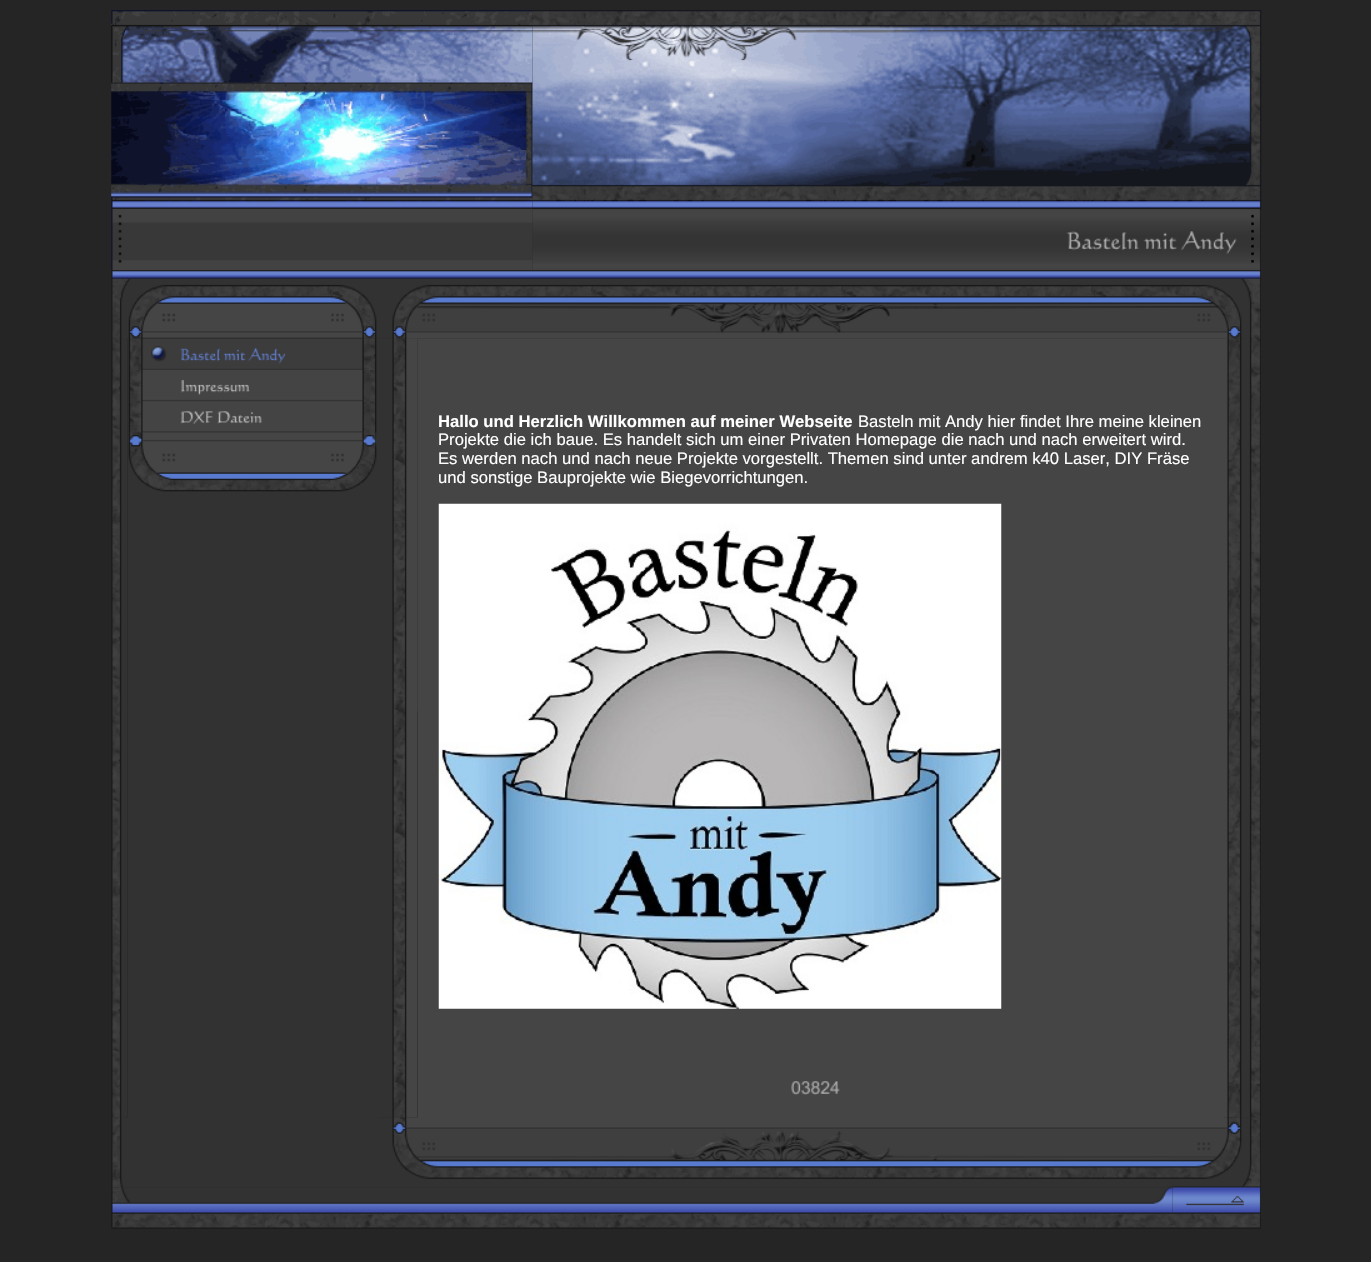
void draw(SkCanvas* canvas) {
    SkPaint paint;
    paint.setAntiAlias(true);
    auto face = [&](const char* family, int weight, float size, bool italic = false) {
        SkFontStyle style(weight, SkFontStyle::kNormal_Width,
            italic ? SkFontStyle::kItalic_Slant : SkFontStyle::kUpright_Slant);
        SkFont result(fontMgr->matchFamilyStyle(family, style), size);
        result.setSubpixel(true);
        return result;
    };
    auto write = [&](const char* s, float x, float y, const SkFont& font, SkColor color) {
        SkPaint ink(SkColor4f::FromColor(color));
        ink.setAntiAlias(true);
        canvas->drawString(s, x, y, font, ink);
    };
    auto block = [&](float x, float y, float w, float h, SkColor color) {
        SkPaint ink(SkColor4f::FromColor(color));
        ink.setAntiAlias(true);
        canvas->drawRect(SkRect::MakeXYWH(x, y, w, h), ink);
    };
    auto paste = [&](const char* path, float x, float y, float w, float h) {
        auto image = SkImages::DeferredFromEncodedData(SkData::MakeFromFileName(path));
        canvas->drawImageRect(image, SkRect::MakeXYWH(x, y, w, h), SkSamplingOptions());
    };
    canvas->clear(SkColorSetRGB(37, 37, 37));
    paste("pic1.png", 111, 10, 422, 260);
    paste("pic2.png", 532, 10, 730, 200);
    paste("pic3.png", 532, 210, 729, 60);
    paste("pic5.png", 111, 338, 17, 780);
    paste("pic10.png", 378, 338, 40, 780);
    paste("pic13.png", 1224, 338, 37, 780);
    paste("pic4.png", 111, 270, 1150, 69);
    block(128, 339, 250, 779, SkColorSetRGB(50, 50, 50));
    paste("pic6.png", 128, 339, 249, 31);
    paste("pic7.png", 128, 370, 249, 32);
    paste("pic8.png", 128, 401, 249, 32);
    paste("pic9.png", 128, 432, 249, 60);
    block(417, 339, 1, 372, SkColorSetRGB(61, 61, 61));
    block(418, 339, 806, 779, SkColorSetRGB(69, 69, 69));
    auto kFont1 = face("Liberation Sans", 700, 16.65f);
    write("Hallo und Herzlich Willkommen auf meiner Webseite", 438, 427, kFont1, SK_ColorWHITE);
    auto kFont2 = face("Liberation Sans", 400, 16.65f);
    write("Basteln mit Andy hier findet Ihre meine kleinen", 858, 427, kFont2, SK_ColorWHITE);
    write("Projekte die ich baue. Es handelt sich um einer Privaten Homepage die nach und nach erweitert wird.", 438, 445, kFont2, SK_ColorWHITE);
    write("Es werden nach und nach neue Projekte vorgestellt. Themen sind unter andrem k40 Laser, DIY Fräse", 438, 464, kFont2, SK_ColorWHITE);
    write("und sonstige Bauprojekte wie Biegevorrichtungen.", 438, 483, kFont2, SK_ColorWHITE);
    paste("pic11.png", 438, 503, 564, 506);
    paste("pic12.png", 791, 1081, 49, 14);
    block(1258, 711, 1, 1, SkColorSetRGB(52, 52, 52));
    paste("pic14.png", 111, 1117, 1150, 71);
    paste("pic15.png", 111, 1187, 1062, 27);
    paste("pic16.png", 1172, 1187, 89, 27);
    paste("pic17.png", 111, 1213, 1150, 16);
}
